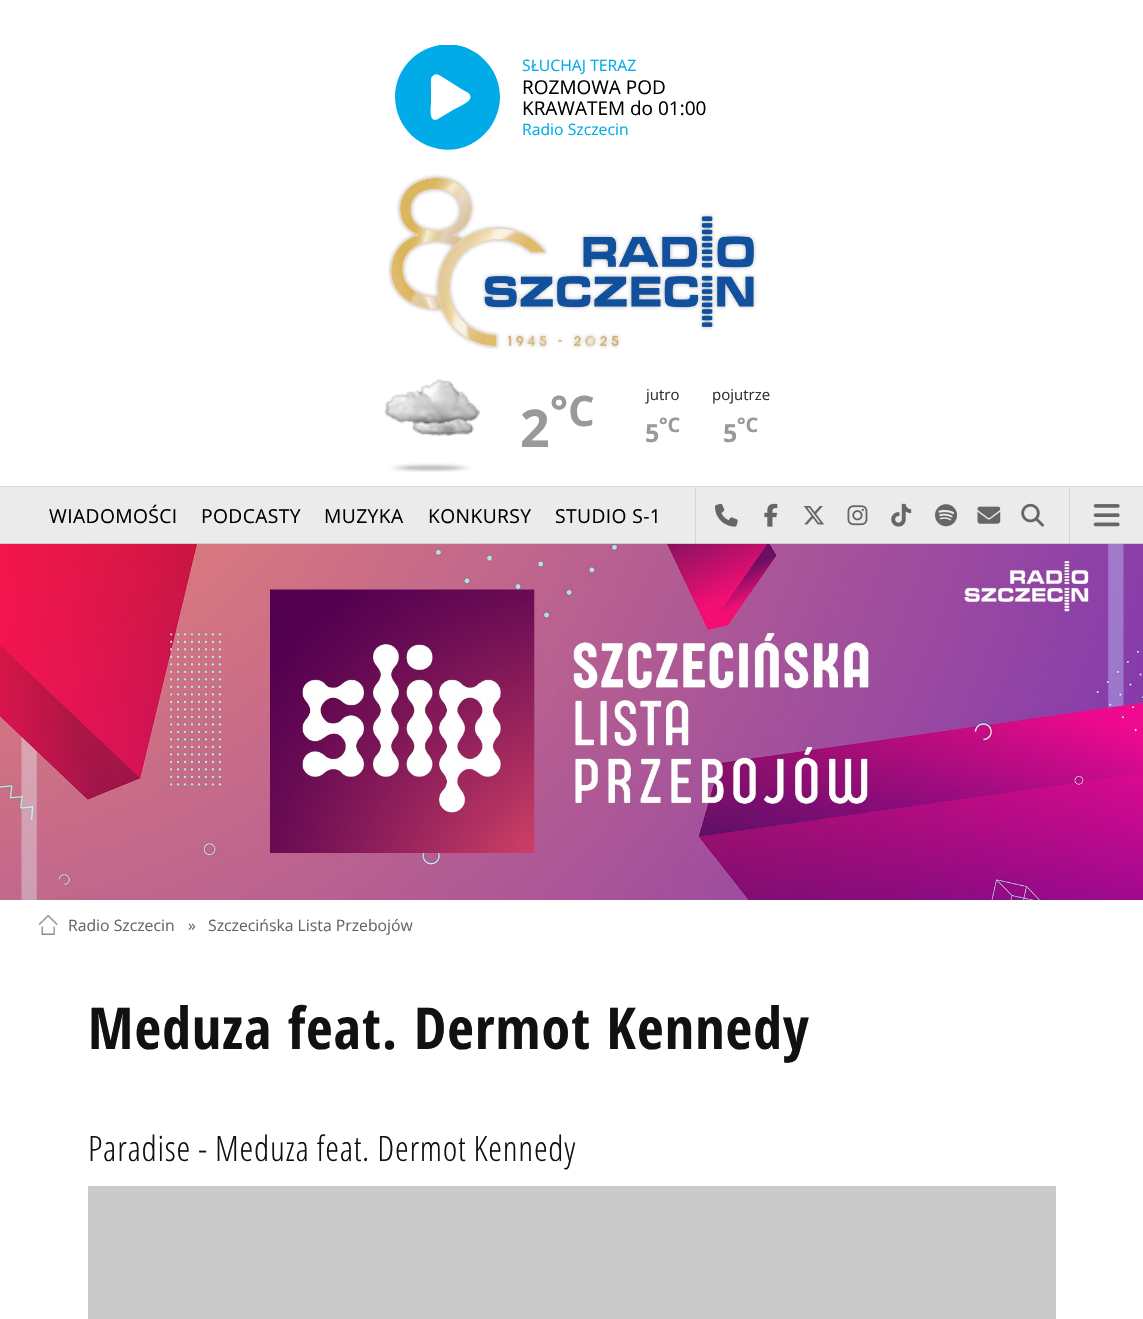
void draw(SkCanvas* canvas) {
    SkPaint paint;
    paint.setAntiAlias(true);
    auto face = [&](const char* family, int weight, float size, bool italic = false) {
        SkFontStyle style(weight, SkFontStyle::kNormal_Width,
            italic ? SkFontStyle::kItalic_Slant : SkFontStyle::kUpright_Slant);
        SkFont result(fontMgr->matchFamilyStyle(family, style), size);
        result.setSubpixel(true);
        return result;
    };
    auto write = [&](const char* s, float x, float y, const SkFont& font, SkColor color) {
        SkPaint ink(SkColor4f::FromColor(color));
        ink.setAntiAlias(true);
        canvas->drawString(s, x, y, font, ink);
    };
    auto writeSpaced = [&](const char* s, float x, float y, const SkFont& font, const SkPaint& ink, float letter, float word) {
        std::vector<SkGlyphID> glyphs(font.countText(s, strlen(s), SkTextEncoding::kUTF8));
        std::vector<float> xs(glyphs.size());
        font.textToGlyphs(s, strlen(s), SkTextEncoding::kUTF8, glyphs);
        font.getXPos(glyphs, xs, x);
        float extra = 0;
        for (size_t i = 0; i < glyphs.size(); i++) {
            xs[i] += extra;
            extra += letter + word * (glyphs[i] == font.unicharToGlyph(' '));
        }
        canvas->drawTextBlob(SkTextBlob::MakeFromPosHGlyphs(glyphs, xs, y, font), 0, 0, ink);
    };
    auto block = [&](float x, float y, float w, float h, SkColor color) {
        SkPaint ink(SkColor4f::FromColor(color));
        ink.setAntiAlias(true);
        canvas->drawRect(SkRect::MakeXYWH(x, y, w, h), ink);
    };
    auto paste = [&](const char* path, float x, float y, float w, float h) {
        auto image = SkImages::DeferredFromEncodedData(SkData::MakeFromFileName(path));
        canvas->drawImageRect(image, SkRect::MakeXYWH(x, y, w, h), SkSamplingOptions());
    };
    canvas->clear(SK_ColorWHITE);
    canvas->save();
    canvas->clipRect(SkRect::MakeXYWH(385, 45, 125, 105));
    paint.setColor(SkColorSetRGB(0, 171, 231));
    canvas->drawPath(SkPathBuilder().moveTo(395, 97).cubicTo(396, 47, 458, 25, 489, 65).cubicTo(496, 74, 500, 85, 500, 97).cubicTo(500, 108, 496, 120, 489, 129).cubicTo(458, 169, 396, 147, 395, 97).close().moveTo(434, 75).cubicTo(430, 77, 431, 81, 431, 85).lineTo(431, 103).cubicTo(431, 106, 428, 124, 438, 119).lineTo(453, 110).cubicTo(457, 108, 469, 102, 470, 99).cubicTo(472, 94, 467, 92, 463, 90).lineTo(444, 78).cubicTo(440, 76, 437, 73, 434, 75).close().detach(), paint);
    canvas->restore();
    auto kFont1 = face("Open Sans", 400, 15.75f);
    write("SŁUCHAJ TERAZ", 522, 71, kFont1, SkColorSetRGB(0, 171, 231));
    auto kFont2 = face("Open Sans", 400, 19);
    write("ROZMOWA POD", 522, 94, kFont2, SK_ColorBLACK);
    write("KRAWATEM do 01:00", 522, 115, kFont2, SK_ColorBLACK);
    write("Radio Szczecin", 522, 135, kFont1, SkColorSetRGB(0, 171, 231));
    paste("pic1.png", 388, 174, 369, 175);
    paste("pic2.png", 384, 379, 96, 93);
    auto kFont3 = face("Open Sans", 700, 52);
    write("2", 520, 447, kFont3, SkColorSetRGB(153, 153, 153));
    auto kFont4 = face("Open Sans", 700, 42);
    write("°C", 550, 426, kFont4, SkColorSetRGB(153, 153, 153));
    auto kFont5 = face("Open Sans", 400, 15);
    write("jutro", 646, 400, kFont5, SkColorSetRGB(51, 51, 51));
    auto kFont6 = face("Open Sans", 700, 25);
    write("5", 645, 442, kFont6, SkColorSetRGB(153, 153, 153));
    auto kFont7 = face("Open Sans", 700, 20);
    write("°C", 659, 432, kFont7, SkColorSetRGB(153, 153, 153));
    write("pojutrze", 712, 400, kFont5, SkColorSetRGB(51, 51, 51));
    write("5", 723, 442, kFont6, SkColorSetRGB(153, 153, 153));
    write("°C", 737, 432, kFont7, SkColorSetRGB(153, 153, 153));
    block(0, 487, 1143, 56, SkColorSetRGB(235, 235, 235));
    block(1069, 488, 1, 56, SkColorSetRGB(213, 213, 213));
    block(695, 488, 1, 56, SkColorSetRGB(213, 213, 213));
    block(0, 486, 1143, 1, SkColorSetRGB(213, 213, 213));
    block(0, 543, 1143, 1, SkColorSetRGB(213, 213, 213));
    block(1069, 543, 1, 1, SkColorSetRGB(197, 197, 197));
    block(695, 543, 1, 1, SkColorSetRGB(197, 197, 197));
    auto kFont8 = face("Open Sans", 400, 19.25f);
    paint.setColor(SK_ColorBLACK);
    writeSpaced("WIADOMOŚCI", 49, 523, kFont8, paint, 0.4f, 0);
    writeSpaced("PODCASTY", 201, 523, kFont8, paint, 0.4f, 0);
    writeSpaced("MUZYKA", 324, 523, kFont8, paint, 0.4f, 0);
    writeSpaced("KONKURSY", 428, 523, kFont8, paint, 0.4f, 0);
    writeSpaced("STUDIO S-1", 555, 523, kFont8, paint, 0.4f, 0);
    paste("pic3.png", 715, 503, 23, 24);
    paste("pic4.png", 764, 503, 14, 24);
    paste("pic5.png", 803, 506, 21, 19);
    paste("pic6.png", 847, 505, 21, 21);
    paste("pic7.png", 891, 503, 21, 24);
    paste("pic8.png", 935, 504, 22, 23);
    paste("pic9.png", 977, 506, 24, 18);
    paste("pic10.png", 1021, 503, 23, 24);
    paste("pic11.png", 1093, 504, 27, 23);
    paste("pic12.png", 0, 543, 1143, 357);
    paste("pic13.png", 38, 915, 20, 20);
    write("Radio Szczecin", 68, 931, kFont1, SkColorSetRGB(102, 102, 102));
    write("»", 188, 931, kFont1, SkColorSetRGB(102, 102, 102));
    write("Szczecińska Lista Przebojów", 208, 931, kFont1, SkColorSetRGB(102, 102, 102));
    auto kFont9 = face("Open Sans Condensed", 700, 57.75f);
    paint.setColor(SkColorSetRGB(17, 17, 17));
    writeSpaced("Meduza feat. Dermot Kennedy", 88, 1049, kFont9, paint, 1.15f, 0);
    auto kFont10 = face("Open Sans Condensed", 300, 35);
    writeSpaced("Paradise - Meduza feat. Dermot Kennedy", 88, 1161, kFont10, paint, 0.7f, 0);
    block(88, 1186, 968, 133, SkColorSetRGB(202, 202, 202));
}
